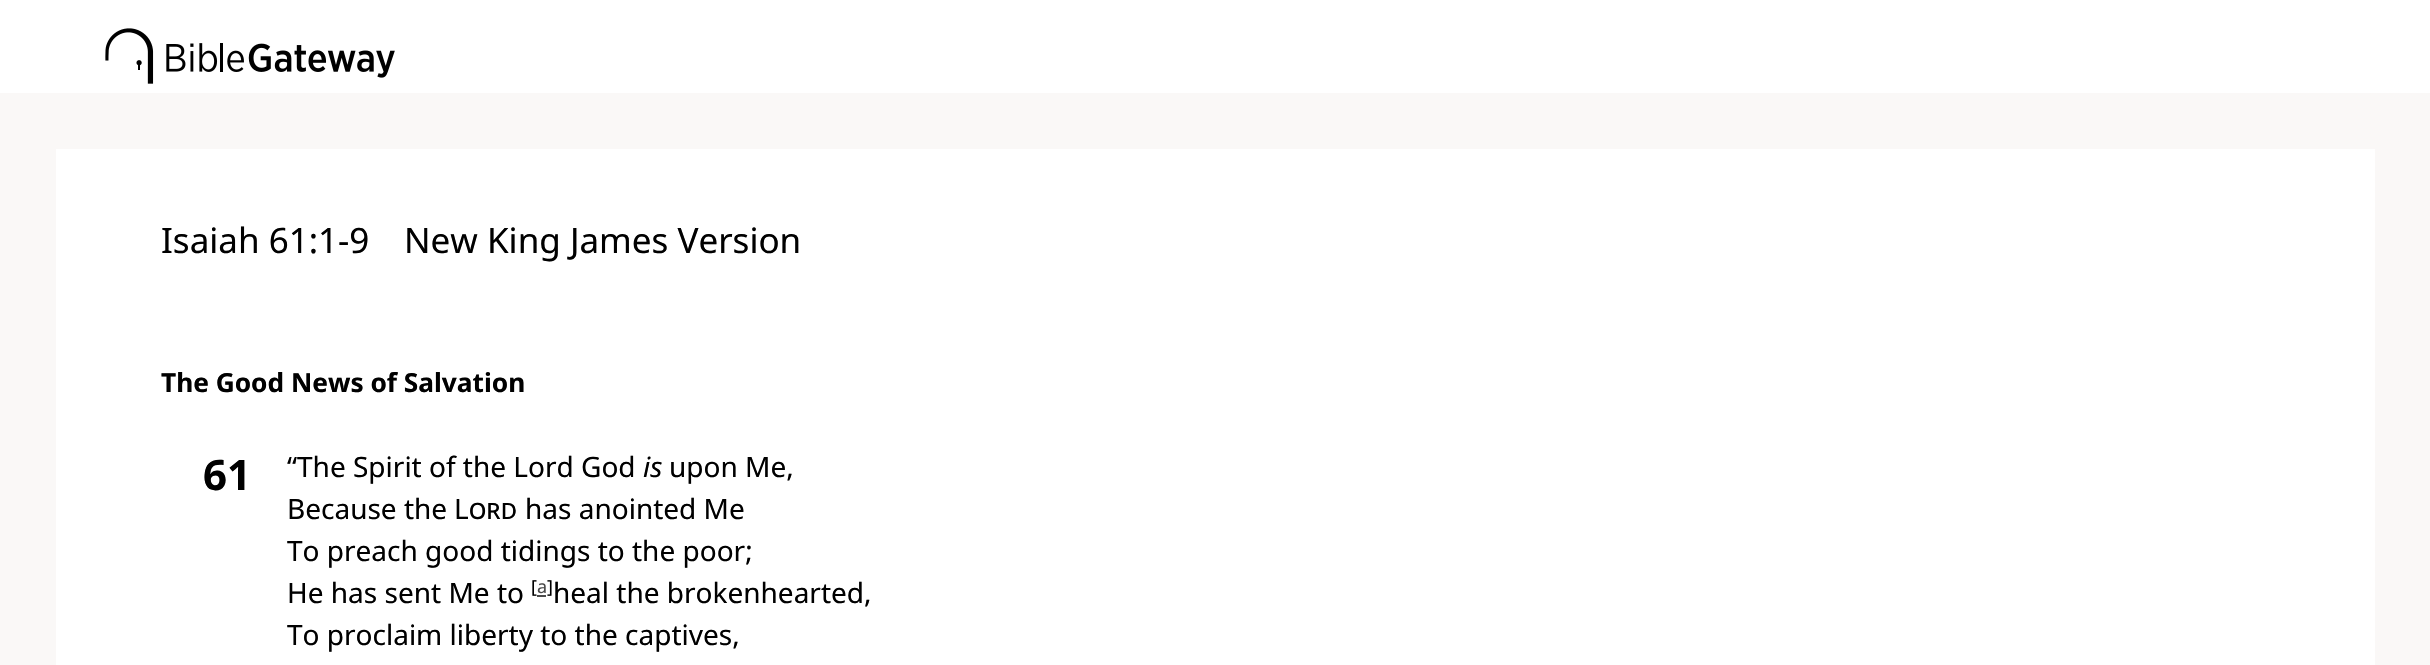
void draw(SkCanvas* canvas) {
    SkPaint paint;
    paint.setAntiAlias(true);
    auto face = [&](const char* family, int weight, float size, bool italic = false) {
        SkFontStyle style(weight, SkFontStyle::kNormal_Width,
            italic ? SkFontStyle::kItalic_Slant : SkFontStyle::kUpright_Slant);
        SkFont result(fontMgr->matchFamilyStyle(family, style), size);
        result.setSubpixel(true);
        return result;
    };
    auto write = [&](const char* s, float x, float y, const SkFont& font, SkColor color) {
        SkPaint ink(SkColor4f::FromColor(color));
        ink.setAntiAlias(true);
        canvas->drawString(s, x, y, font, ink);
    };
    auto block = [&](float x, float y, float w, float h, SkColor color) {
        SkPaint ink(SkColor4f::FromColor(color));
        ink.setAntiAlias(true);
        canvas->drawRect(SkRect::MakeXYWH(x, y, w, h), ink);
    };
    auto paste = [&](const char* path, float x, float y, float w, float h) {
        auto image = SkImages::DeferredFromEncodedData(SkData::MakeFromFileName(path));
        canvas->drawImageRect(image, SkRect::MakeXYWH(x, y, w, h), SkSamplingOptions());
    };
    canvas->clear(SkColorSetRGB(250, 248, 247));
    block(0, 0, 2430, 93, SK_ColorWHITE);
    paste("pic1.png", 105, 28, 290, 56);
    block(56, 149, 2319, 516, SK_ColorWHITE);
    auto kFont1 = face("Noto Sans", 400, 35);
    write("Isaiah 61:1-9", 161, 253, kFont1, SK_ColorBLACK);
    write("New King James Version", 404, 253, kFont1, SK_ColorBLACK);
    auto kFont2 = face("Noto Sans", 700, 26.25f);
    write("The Good News of Salvation", 161, 392, kFont2, SK_ColorBLACK);
    auto kFont3 = face("Noto Sans", 700, 42);
    write("61", 203, 490, kFont3, SK_ColorBLACK);
    auto kFont4 = face("Noto Sans", 400, 28);
    write("“The Spirit of the Lord God", 287, 477, kFont4, SK_ColorBLACK);
    auto kFont5 = face("Noto Sans", 400, 28, true);
    write("is", 643, 477, kFont5, SK_ColorBLACK);
    write("upon Me,", 669, 477, kFont4, SK_ColorBLACK);
    write("Because the", 287, 519, kFont4, SK_ColorBLACK);
    auto kFont6 = face("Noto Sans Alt", 400, 28);
    write("Lord", 454, 519, kFont6, SK_ColorBLACK);
    write("has anointed Me", 525, 519, kFont4, SK_ColorBLACK);
    write("To preach good tidings to the poor;", 287, 561, kFont4, SK_ColorBLACK);
    write("He has sent Me to", 287, 603, kFont4, SK_ColorBLACK);
    auto kFont7 = face("Noto Sans", 400, 18);
    write("[", 531, 593, kFont7, SK_ColorBLACK);
    write("a", 537, 593, kFont7, SkColorSetRGB(74, 74, 74));
    write("]", 547, 593, kFont7, SK_ColorBLACK);
    write("heal the brokenhearted,", 553, 603, kFont4, SK_ColorBLACK);
    block(537, 595, 9, 2, SkColorSetRGB(74, 74, 74));
    write("To proclaim liberty to the captives,", 287, 645, kFont4, SK_ColorBLACK);
}
